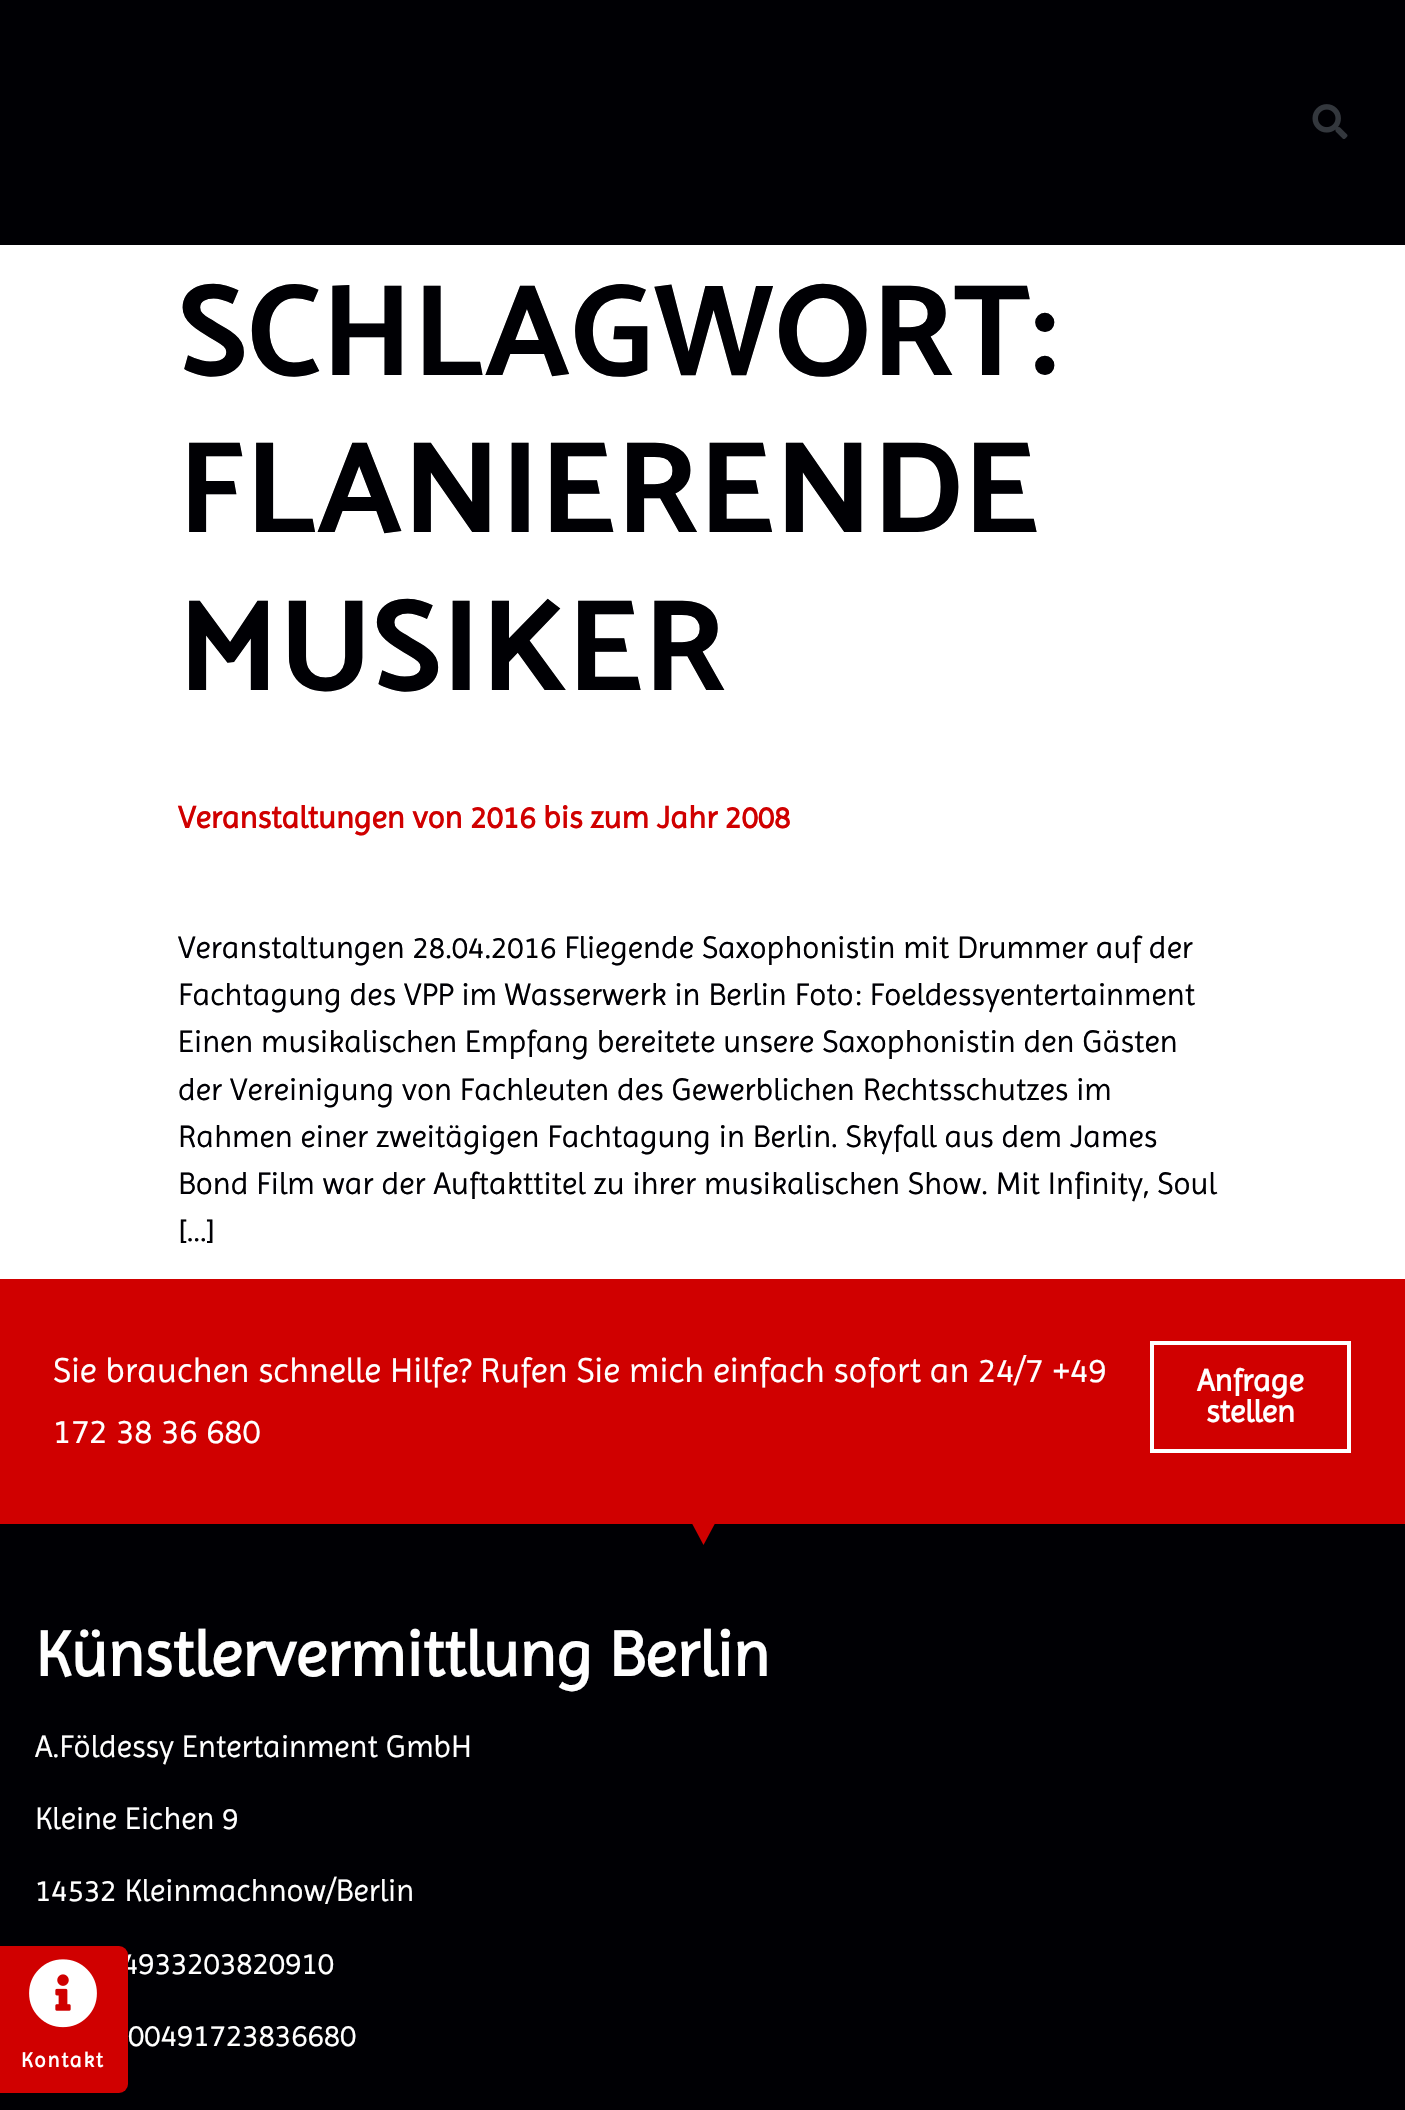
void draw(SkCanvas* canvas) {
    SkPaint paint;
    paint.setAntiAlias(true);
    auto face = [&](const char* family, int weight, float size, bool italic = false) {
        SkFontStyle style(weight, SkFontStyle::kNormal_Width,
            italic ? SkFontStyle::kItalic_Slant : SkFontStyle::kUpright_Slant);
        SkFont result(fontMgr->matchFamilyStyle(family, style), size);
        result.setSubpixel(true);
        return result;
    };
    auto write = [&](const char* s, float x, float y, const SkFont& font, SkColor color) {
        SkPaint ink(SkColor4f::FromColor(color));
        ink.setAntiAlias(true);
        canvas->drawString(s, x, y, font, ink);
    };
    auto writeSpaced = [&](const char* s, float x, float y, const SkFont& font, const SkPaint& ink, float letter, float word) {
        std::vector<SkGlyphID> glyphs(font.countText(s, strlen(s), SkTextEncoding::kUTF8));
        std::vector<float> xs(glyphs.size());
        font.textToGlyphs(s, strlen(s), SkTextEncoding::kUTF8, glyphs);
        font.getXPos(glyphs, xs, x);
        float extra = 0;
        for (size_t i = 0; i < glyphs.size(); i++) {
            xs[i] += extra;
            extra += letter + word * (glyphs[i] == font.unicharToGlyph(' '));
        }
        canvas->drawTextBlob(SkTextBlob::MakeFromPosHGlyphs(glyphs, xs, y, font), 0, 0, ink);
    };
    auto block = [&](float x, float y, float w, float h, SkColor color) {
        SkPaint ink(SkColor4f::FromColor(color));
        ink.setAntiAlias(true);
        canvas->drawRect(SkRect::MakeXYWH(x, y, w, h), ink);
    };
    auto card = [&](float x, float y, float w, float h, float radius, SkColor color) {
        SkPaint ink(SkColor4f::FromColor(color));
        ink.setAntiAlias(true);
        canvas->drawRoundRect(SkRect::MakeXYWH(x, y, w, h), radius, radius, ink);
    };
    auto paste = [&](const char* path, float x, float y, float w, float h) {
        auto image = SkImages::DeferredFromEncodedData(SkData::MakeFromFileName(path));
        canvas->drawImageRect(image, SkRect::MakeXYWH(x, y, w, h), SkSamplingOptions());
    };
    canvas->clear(SK_ColorWHITE);
    auto kFont1 = face("Catamaran", 700, 131.25f);
    write("SCHLAGWORT:", 178, 375, kFont1, SkColorSetRGB(0, 0, 4));
    write("FLANIERENDE", 178, 532, kFont1, SkColorSetRGB(0, 0, 4));
    write("MUSIKER", 178, 690, kFont1, SkColorSetRGB(0, 0, 4));
    auto kFont2 = face("Imprima", 700, 31.5f);
    write("Veranstaltungen von 2016 bis zum Jahr 2008", 178, 828, kFont2, SkColorSetRGB(208, 0, 0));
    auto kFont3 = face("Imprima", 400, 31.5f);
    write("Veranstaltungen 28.04.2016 Fliegende Saxophonistin mit Drummer auf der", 178, 958, kFont3, SkColorSetRGB(0, 0, 4));
    write("Fachtagung des VPP im Wasserwerk in Berlin Foto: Foeldessyentertainment", 178, 1005, kFont3, SkColorSetRGB(0, 0, 4));
    write("Einen musikalischen Empfang bereitete unsere Saxophonistin den Gästen", 178, 1052, kFont3, SkColorSetRGB(0, 0, 4));
    write("der Vereinigung von Fachleuten des Gewerblichen Rechtsschutzes im", 178, 1100, kFont3, SkColorSetRGB(0, 0, 4));
    write("Rahmen einer zweitägigen Fachtagung in Berlin. Skyfall aus dem James", 178, 1147, kFont3, SkColorSetRGB(0, 0, 4));
    write("Bond Film war der Auftakttitel zu ihrer musikalischen Show. Mit Infinity, Soul", 178, 1194, kFont3, SkColorSetRGB(0, 0, 4));
    write("[…]", 178, 1241, kFont3, SkColorSetRGB(0, 0, 4));
    block(0, 1279, 1405, 245, SkColorSetRGB(208, 0, 0));
    auto kFont4 = face("Imprima", 400, 35);
    write("Sie brauchen schnelle Hilfe? Rufen Sie mich einfach sofort an 24/7 +49", 53, 1382, kFont4, SK_ColorWHITE);
    write("172 38 36 680", 53, 1443, kFont4, SK_ColorWHITE);
    paint.setStyle(SkPaint::kStroke_Style);
    paint.setStrokeWidth(4);
    paint.setColor(SK_ColorWHITE);
    canvas->drawRect(SkRect::MakeXYWH(1152, 1343, 197, 108), paint);
    write("Anfrage", 1197, 1391, kFont2, SK_ColorWHITE);
    write("stellen", 1206, 1422, kFont2, SK_ColorWHITE);
    block(0, 1524, 1405, 586, SkColorSetRGB(0, 0, 4));
    canvas->save();
    canvas->clipRect(SkRect::MakeXYWH(280, 1523, 845, 22));
    paint.setStyle(SkPaint::kFill_Style);
    paint.setColor(SkColorSetRGB(208, 0, 0));
    canvas->drawPath(SkPathBuilder().moveTo(703.5f, 1545).lineTo(691.5f, 1522.5f).lineTo(715.5f, 1522.5f).close().detach(), paint);
    canvas->restore();
    auto kFont5 = face("Imprima", 700, 64.75f);
    write("Künstlervermittlung Berlin", 35, 1676, kFont5, SK_ColorWHITE);
    write("A.Földessy Entertainment GmbH", 35, 1757, kFont3, SK_ColorWHITE);
    write("Kleine Eichen 9", 35, 1829, kFont3, SK_ColorWHITE);
    write("14532 Kleinmachnow/Berlin", 35, 1901, kFont3, SK_ColorWHITE);
    write("4933203820910", 122, 1974, kFont3, SK_ColorWHITE);
    write("00491723836680", 128, 2046, kFont3, SK_ColorWHITE);
    block(0, 0, 1405, 245, SkColorSetRGB(0, 0, 4));
    paste("pic1.png", 1312, 104, 36, 35);
    card(-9, 1946, 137, 147, 9, SkColorSetRGB(208, 0, 0));
    paste("pic2.png", 29, 1959, 68, 69);
    auto kFont6 = face("Imprima", 700, 21);
    paint.setColor(SK_ColorWHITE);
    writeSpaced("Kontakt", 21, 2067, kFont6, paint, 1.75f, 0);
}
